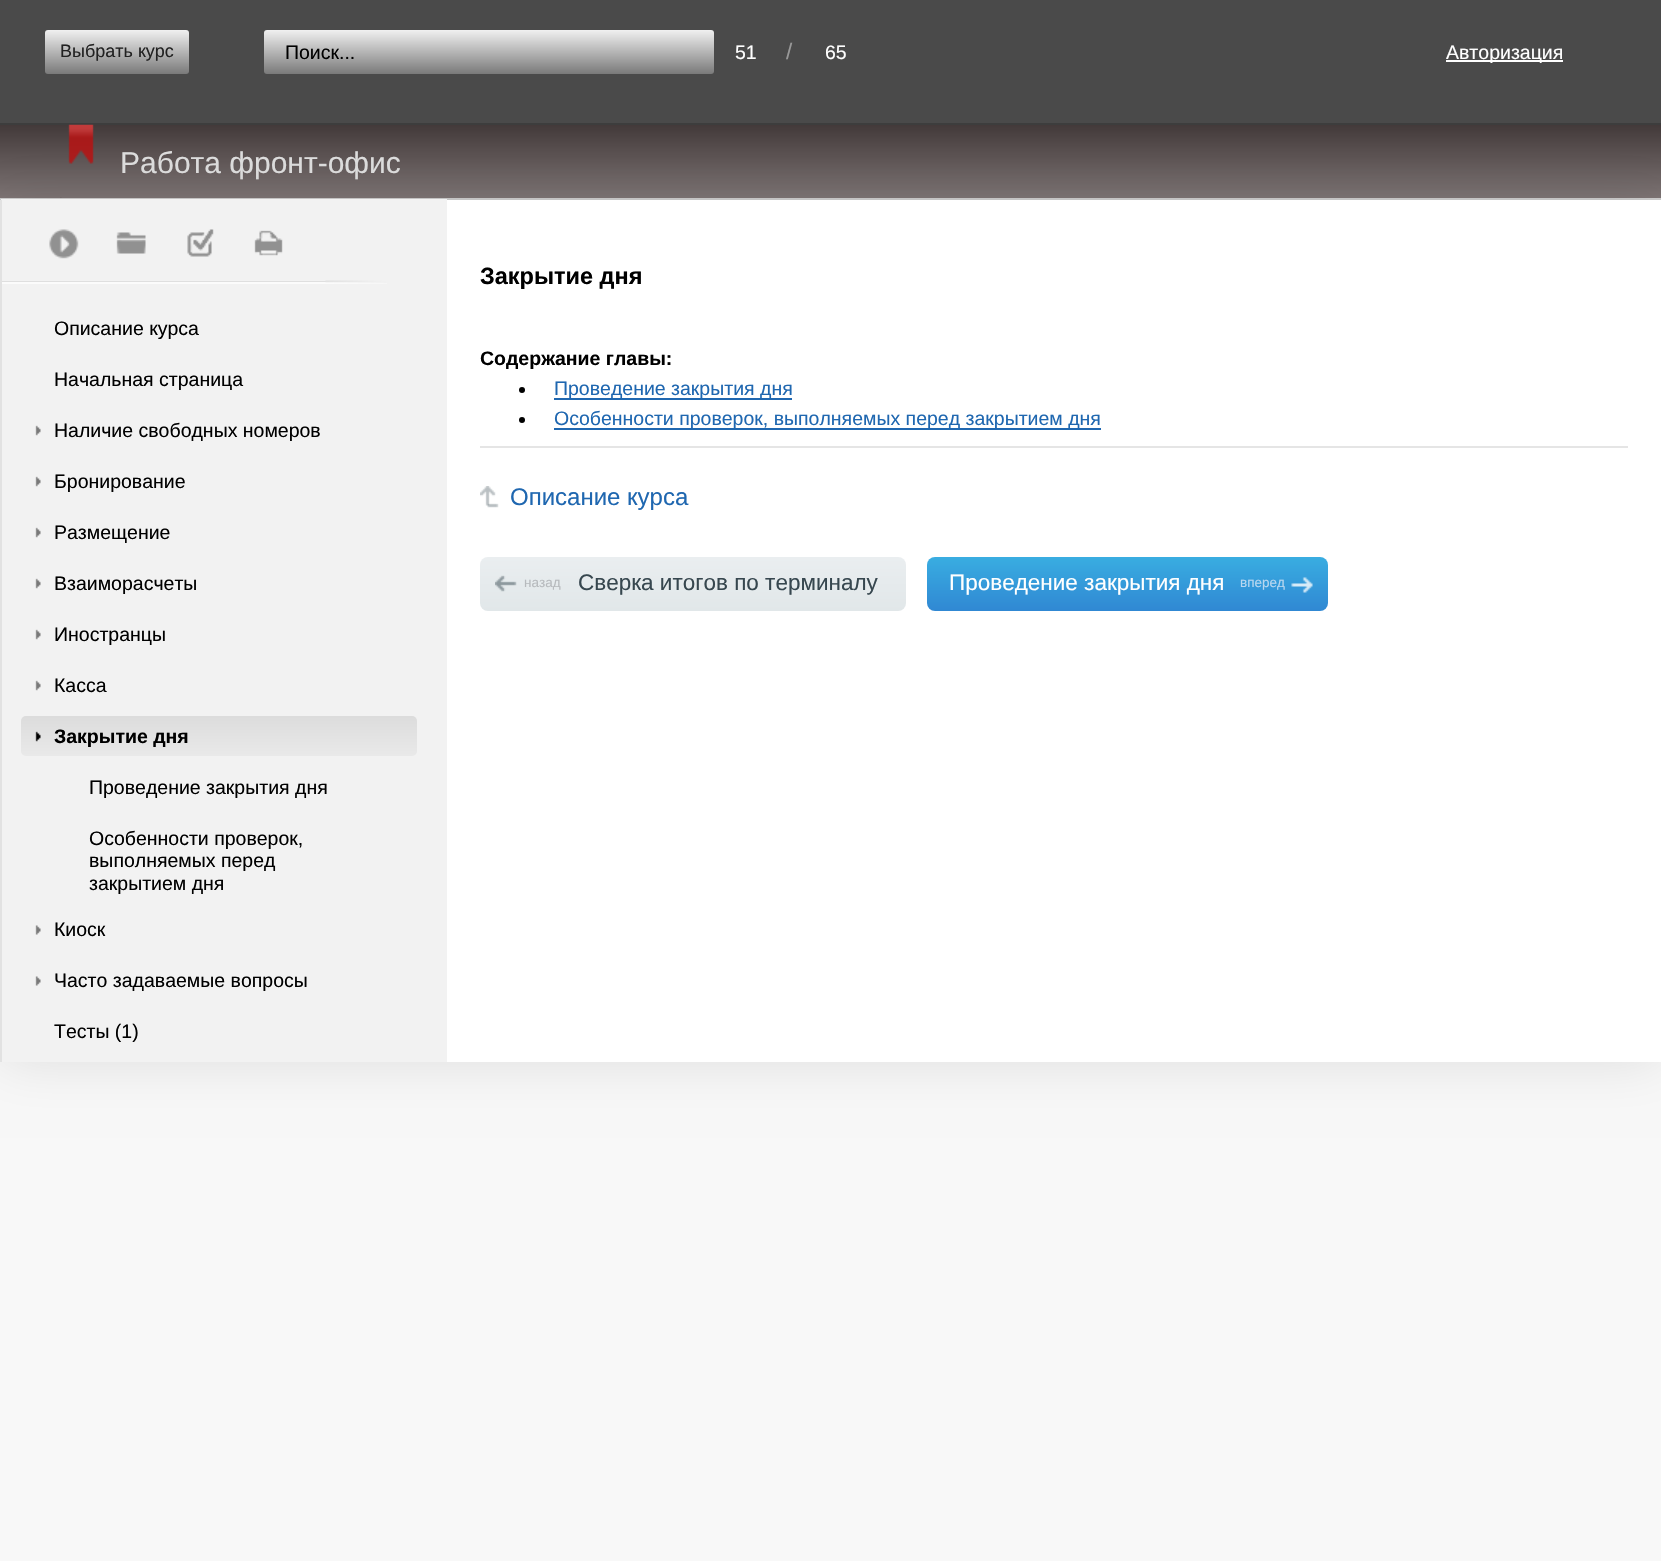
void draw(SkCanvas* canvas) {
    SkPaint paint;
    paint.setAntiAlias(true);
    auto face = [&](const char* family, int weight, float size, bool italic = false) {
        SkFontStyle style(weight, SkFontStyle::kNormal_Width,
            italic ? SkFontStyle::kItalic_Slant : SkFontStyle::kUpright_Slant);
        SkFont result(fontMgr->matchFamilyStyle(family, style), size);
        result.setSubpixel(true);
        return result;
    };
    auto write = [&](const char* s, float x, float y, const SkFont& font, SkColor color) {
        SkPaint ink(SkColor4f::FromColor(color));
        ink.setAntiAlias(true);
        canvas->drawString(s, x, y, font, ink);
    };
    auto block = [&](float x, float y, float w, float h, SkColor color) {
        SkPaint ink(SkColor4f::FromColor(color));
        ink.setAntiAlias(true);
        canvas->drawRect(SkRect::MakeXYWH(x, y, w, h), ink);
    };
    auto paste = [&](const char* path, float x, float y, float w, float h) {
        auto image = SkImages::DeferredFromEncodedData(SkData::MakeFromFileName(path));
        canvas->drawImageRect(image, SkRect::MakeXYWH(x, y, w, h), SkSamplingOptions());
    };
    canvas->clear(SkColorSetRGB(248, 248, 248));
    block(0, 0, 1661, 123, SkColorSetRGB(74, 74, 74));
    block(0, 123, 1661, 2, SkColorSetRGB(61, 61, 61));
    {
        const SkColor colors[] = {SkColorSetRGB(122, 122, 122), SkColorSetRGB(240, 240, 240)};
        const float stops[] = {0, 1};
        const SkPoint ends[] = {{117, 74}, {117, 30}};
        paint.setShader(SkGradientShader::MakeLinear(ends, colors, stops, 2, SkTileMode::kClamp));
        paint.setAlpha(255);
    }
    canvas->drawRoundRect(SkRect::MakeXYWH(45, 30, 144, 44), 3, 3, paint);
    auto kFont1 = face("Liberation Sans", 400, 18);
    write("Выбрать курс", 60, 57, kFont1, SkColorSetRGB(34, 34, 34));
    {
        const SkColor colors[] = {SkColorSetRGB(122, 122, 122), SkColorSetRGB(240, 240, 240)};
        const float stops[] = {0, 1};
        const SkPoint ends[] = {{489, 74}, {489, 30}};
        paint.setShader(SkGradientShader::MakeLinear(ends, colors, stops, 2, SkTileMode::kClamp));
        paint.setAlpha(255);
    }
    canvas->drawRoundRect(SkRect::MakeXYWH(264, 30, 450, 44), 3, 3, paint);
    auto kFont2 = face("Liberation Sans", 400, 19.5f);
    write("Поиск...", 285, 59, kFont2, SK_ColorBLACK);
    write("51", 735, 59, kFont2, SK_ColorWHITE);
    auto kFont3 = face("Liberation Sans", 400, 22.5f);
    write("/", 786, 59, kFont3, SkColorSetRGB(153, 153, 153));
    write("65", 825, 59, kFont2, SK_ColorWHITE);
    block(1446, 60, 117, 2, SK_ColorWHITE);
    write("Авторизация", 1446, 59, kFont2, SK_ColorWHITE);
    {
        const SkColor colors[] = {SkColorSetRGB(66, 57, 57), SkColorSetRGB(126, 117, 117)};
        const float stops[] = {0, 1};
        const SkPoint ends[] = {{831, 124}, {831, 198}};
        paint.setShader(SkGradientShader::MakeLinear(ends, colors, stops, 2, SkTileMode::kClamp));
        paint.setAlpha(255);
    }
    canvas->drawRect(SkRect::MakeXYWH(0, 125, 1661, 73), paint);
    block(0, 198, 1661, 2, SkColorSetRGB(207, 207, 207));
    paste("pic1.png", 60, 124, 34, 74);
    auto kFont4 = face("Liberation Sans", 400, 30);
    write("Работа фронт-офис", 120, 173, kFont4, SkColorSetRGB(222, 222, 222));
    paint.setShader(nullptr);
    paint.setColor(SkColorSetARGB(26, 0, 0, 0));
    paint.setMaskFilter(SkMaskFilter::MakeBlur(kNormal_SkBlurStyle, 25.5f));
    canvas->drawRect(SkRect::MakeXYWH(0, 200, 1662, 862), paint);
    paint.setMaskFilter(nullptr);
    block(447, 200, 1214, 862, SK_ColorWHITE);
    block(1, 199, 446, 863, SkColorSetRGB(242, 242, 242));
    block(0, 200, 2, 862, SkColorSetRGB(226, 226, 226));
    block(2, 281, 324, 1, SkColorSetRGB(223, 223, 223));
    block(2, 282, 385, 2, SkColorSetRGB(251, 251, 251));
    paste("pic2.png", 49, 229, 30, 30);
    paste("pic3.png", 116, 232, 30, 22);
    paste("pic4.png", 187, 229, 27, 28);
    paste("pic5.png", 254, 230, 29, 26);
    paste("pic6.png", 325, 280, 62, 4);
    write("Описание курса", 54, 335, kFont2, SK_ColorBLACK);
    write("Начальная страница", 54, 386, kFont2, SK_ColorBLACK);
    paste("pic7.png", 35, 425, 6, 11);
    write("Наличие свободных номеров", 54, 437, kFont2, SK_ColorBLACK);
    paste("pic7.png", 35, 476, 6, 11);
    write("Бронирование", 54, 488, kFont2, SK_ColorBLACK);
    paste("pic7.png", 35, 527, 6, 11);
    write("Размещение", 54, 539, kFont2, SK_ColorBLACK);
    paste("pic7.png", 35, 578, 6, 11);
    write("Взаиморасчеты", 54, 590, kFont2, SK_ColorBLACK);
    paste("pic7.png", 35, 629, 6, 11);
    write("Иностранцы", 54, 641, kFont2, SK_ColorBLACK);
    paste("pic7.png", 35, 680, 6, 11);
    write("Касса", 54, 692, kFont2, SK_ColorBLACK);
    {
        const SkColor colors[] = {SkColorSetRGB(220, 220, 220), SkColorSetRGB(233, 233, 233)};
        const float stops[] = {0, 1};
        const SkPoint ends[] = {{219, 716}, {219, 756}};
        paint.setShader(SkGradientShader::MakeLinear(ends, colors, stops, 2, SkTileMode::kClamp));
        paint.setAlpha(255);
    }
    canvas->drawRoundRect(SkRect::MakeXYWH(21, 716, 396, 40), 5, 5, paint);
    paste("pic8.png", 35, 731, 6, 11);
    auto kFont5 = face("Liberation Sans", 700, 19.5f);
    write("Закрытие дня", 54, 743, kFont5, SK_ColorBLACK);
    write("Проведение закрытия дня", 89, 794, kFont2, SK_ColorBLACK);
    write("Особенности проверок,", 89, 845, kFont2, SK_ColorBLACK);
    write("выполняемых перед", 89, 867, kFont2, SK_ColorBLACK);
    write("закрытием дня", 89, 890, kFont2, SK_ColorBLACK);
    paste("pic9.png", 35, 925, 6, 10);
    write("Киоск", 54, 936, kFont2, SK_ColorBLACK);
    paste("pic9.png", 35, 976, 6, 10);
    write("Часто задаваемые вопросы", 54, 987, kFont2, SK_ColorBLACK);
    write("Тесты (1)", 54, 1038, kFont2, SK_ColorBLACK);
    auto kFont6 = face("Liberation Sans", 700, 23.5f);
    write("Закрытие дня", 480, 284, kFont6, SK_ColorBLACK);
    write("Содержание главы:", 480, 365, kFont5, SK_ColorBLACK);
    paint.setShader(nullptr);
    paint.setColor(SK_ColorBLACK);
    canvas->drawCircle(522, 390, 3, paint);
    block(554, 398, 238, 2, SkColorSetRGB(31, 103, 176));
    write("Проведение закрытия дня", 554, 395, kFont2, SkColorSetRGB(31, 103, 176));
    canvas->drawCircle(522, 420, 3, paint);
    block(554, 428, 547, 2, SkColorSetRGB(31, 103, 176));
    write("Особенности проверок, выполняемых перед закрытием дня", 554, 425, kFont2, SkColorSetRGB(31, 103, 176));
    block(480, 446, 1148, 2, SkColorSetRGB(229, 229, 229));
    paste("pic10.png", 480, 486, 19, 22);
    auto kFont7 = face("Liberation Sans", 400, 24);
    write("Описание курса", 510, 505, kFont7, SkColorSetRGB(31, 103, 176));
    {
        const SkColor colors[] = {SkColorSetRGB(234, 238, 240), SkColorSetRGB(225, 231, 233)};
        const float stops[] = {0, 1};
        const SkPoint ends[] = {{693, 557}, {693, 611}};
        paint.setShader(SkGradientShader::MakeLinear(ends, colors, stops, 2, SkTileMode::kClamp));
        paint.setAlpha(255);
    }
    canvas->drawRoundRect(SkRect::MakeXYWH(480, 557, 426, 54), 8, 8, paint);
    paste("pic11.png", 495, 575, 22, 17);
    auto kFont8 = face("Liberation Sans", 400, 13.5f);
    write("назад", 524, 587, kFont8, SkColorSetRGB(183, 186, 189));
    write("Сверка итогов по терминалу", 578, 590, kFont3, SkColorSetRGB(55, 71, 79));
    {
        const SkColor colors[] = {SkColorSetRGB(57, 173, 225), SkColorSetRGB(48, 136, 211)};
        const float stops[] = {0, 1};
        const SkPoint ends[] = {{1127, 557}, {1127, 611}};
        paint.setShader(SkGradientShader::MakeLinear(ends, colors, stops, 2, SkTileMode::kClamp));
        paint.setAlpha(255);
    }
    canvas->drawRoundRect(SkRect::MakeXYWH(927, 557, 401, 54), 8, 8, paint);
    write("Проведение закрытия дня", 949, 590, kFont3, SK_ColorWHITE);
    paste("pic12.png", 1291, 577, 22, 16);
    write("вперед", 1240, 587, kFont8, SkColorSetRGB(184, 215, 240));
}
